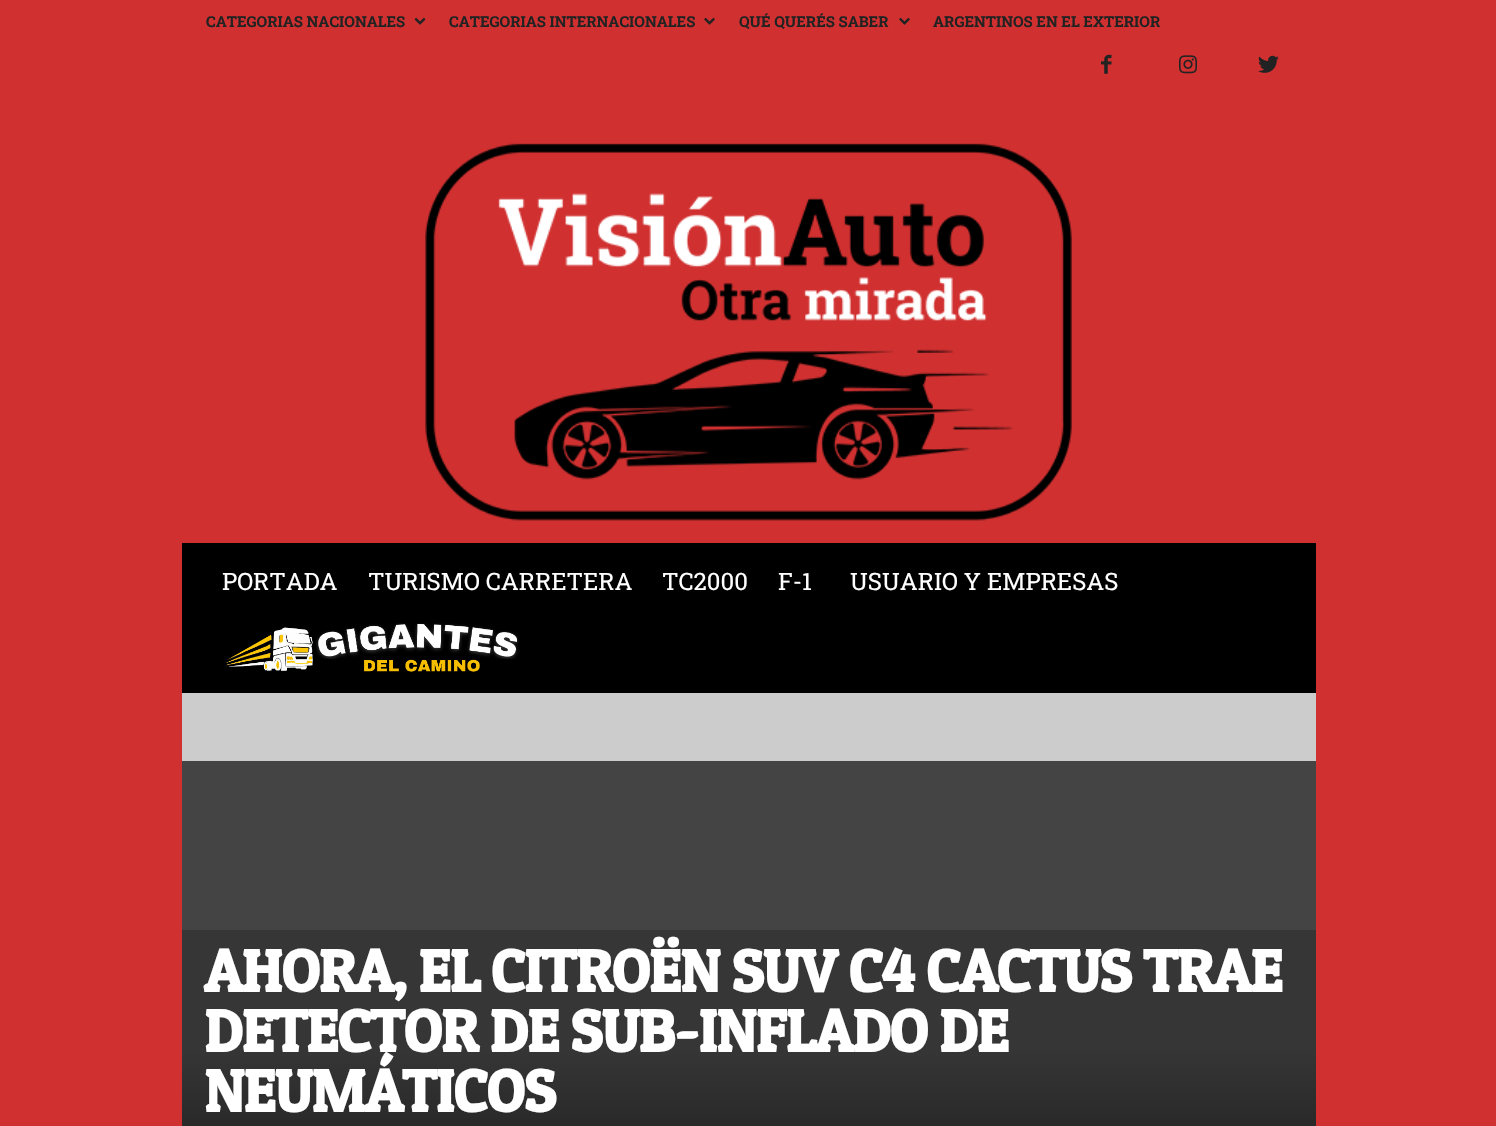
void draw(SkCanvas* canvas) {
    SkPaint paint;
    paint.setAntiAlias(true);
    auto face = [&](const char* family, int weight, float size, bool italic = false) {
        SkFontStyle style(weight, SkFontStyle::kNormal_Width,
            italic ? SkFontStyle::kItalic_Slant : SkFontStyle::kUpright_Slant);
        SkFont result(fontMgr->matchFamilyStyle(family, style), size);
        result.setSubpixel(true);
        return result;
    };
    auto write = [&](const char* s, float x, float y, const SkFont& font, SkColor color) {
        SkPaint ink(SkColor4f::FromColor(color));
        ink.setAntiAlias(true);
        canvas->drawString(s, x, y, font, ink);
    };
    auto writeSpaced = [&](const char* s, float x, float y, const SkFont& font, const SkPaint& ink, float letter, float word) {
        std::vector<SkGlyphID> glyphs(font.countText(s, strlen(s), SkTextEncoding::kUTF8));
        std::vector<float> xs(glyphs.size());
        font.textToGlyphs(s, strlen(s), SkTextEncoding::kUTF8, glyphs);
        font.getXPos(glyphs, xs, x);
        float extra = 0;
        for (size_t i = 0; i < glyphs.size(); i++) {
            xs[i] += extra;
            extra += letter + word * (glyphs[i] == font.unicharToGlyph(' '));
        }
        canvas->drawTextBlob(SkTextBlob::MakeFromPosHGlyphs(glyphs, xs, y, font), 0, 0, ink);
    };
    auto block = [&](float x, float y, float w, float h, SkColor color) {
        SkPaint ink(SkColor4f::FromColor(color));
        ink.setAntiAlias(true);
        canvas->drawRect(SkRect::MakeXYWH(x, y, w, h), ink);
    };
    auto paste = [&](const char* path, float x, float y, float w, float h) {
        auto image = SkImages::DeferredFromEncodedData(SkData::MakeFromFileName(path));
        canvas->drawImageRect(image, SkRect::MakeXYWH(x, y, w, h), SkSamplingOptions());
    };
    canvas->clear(SkColorSetRGB(209, 48, 48));
    auto kFont1 = face("Roboto Slab", 700, 15);
    write("CATEGORIAS NACIONALES", 206, 27, kFont1, SkColorSetRGB(34, 34, 34));
    paste("pic1.png", 414, 17, 12, 8);
    write("CATEGORIAS INTERNACIONALES", 449, 27, kFont1, SkColorSetRGB(34, 34, 34));
    paste("pic2.png", 704, 17, 11, 8);
    write("QUÉ QUERÉS SABER", 739, 27, kFont1, SkColorSetRGB(34, 34, 34));
    paste("pic2.png", 899, 17, 11, 8);
    write("ARGENTINOS EN EL EXTERIOR", 933, 27, kFont1, SkColorSetRGB(34, 34, 34));
    paste("pic3.png", 1101, 54, 11, 20);
    paste("pic4.png", 1179, 55, 18, 19);
    paste("pic5.png", 1258, 55, 21, 18);
    paste("pic6.png", 425, 143, 647, 378);
    block(182, 549, 1134, 144, SK_ColorBLACK);
    block(182, 543, 1134, 6, SkColorSetRGB(2, 1, 1));
    auto kFont2 = face("Roboto Slab", 400, 24);
    write("PORTADA", 222, 590, kFont2, SK_ColorWHITE);
    write("TURISMO CARRETERA", 368, 590, kFont2, SK_ColorWHITE);
    write("TC2000", 662, 590, kFont2, SK_ColorWHITE);
    write("F-1", 778, 590, kFont2, SK_ColorWHITE);
    write("USUARIO Y EMPRESAS", 850, 590, kFont2, SK_ColorWHITE);
    paste("pic7.png", 225, 623, 294, 49);
    block(182, 693, 1134, 68, SkColorSetRGB(204, 204, 204));
    block(182, 761, 1134, 169, SkColorSetRGB(68, 68, 68));
    block(182, 930, 1134, 117, SkColorSetRGB(54, 54, 54));
    auto kFont3 = face("Patua One", 700, 60);
    paint.setColor(SK_ColorWHITE);
    writeSpaced("AHORA, EL CITROËN SUV C4 CACTUS TRAE", 204, 992, kFont3, paint, -1.2f, 0);
    {
        const SkColor colors[] = {SkColorSetRGB(54, 54, 54), SkColorSetRGB(16, 16, 16)};
        const float stops[] = {0, 1};
        const SkPoint ends[] = {{749, 1047}, {749, 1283}};
        paint.setShader(SkGradientShader::MakeLinear(ends, colors, stops, 2, SkTileMode::kClamp));
        paint.setAlpha(255);
    }
    canvas->drawRect(SkRect::MakeXYWH(182, 1047, 1134, 79), paint);
    paint.setShader(nullptr);
    paint.setColor(SK_ColorWHITE);
    writeSpaced("DETECTOR DE SUB-INFLADO DE", 204, 1052, kFont3, paint, -1.2f, 0);
    writeSpaced("NEUMÁTICOS", 204, 1112, kFont3, paint, -1.2f, 0);
}
